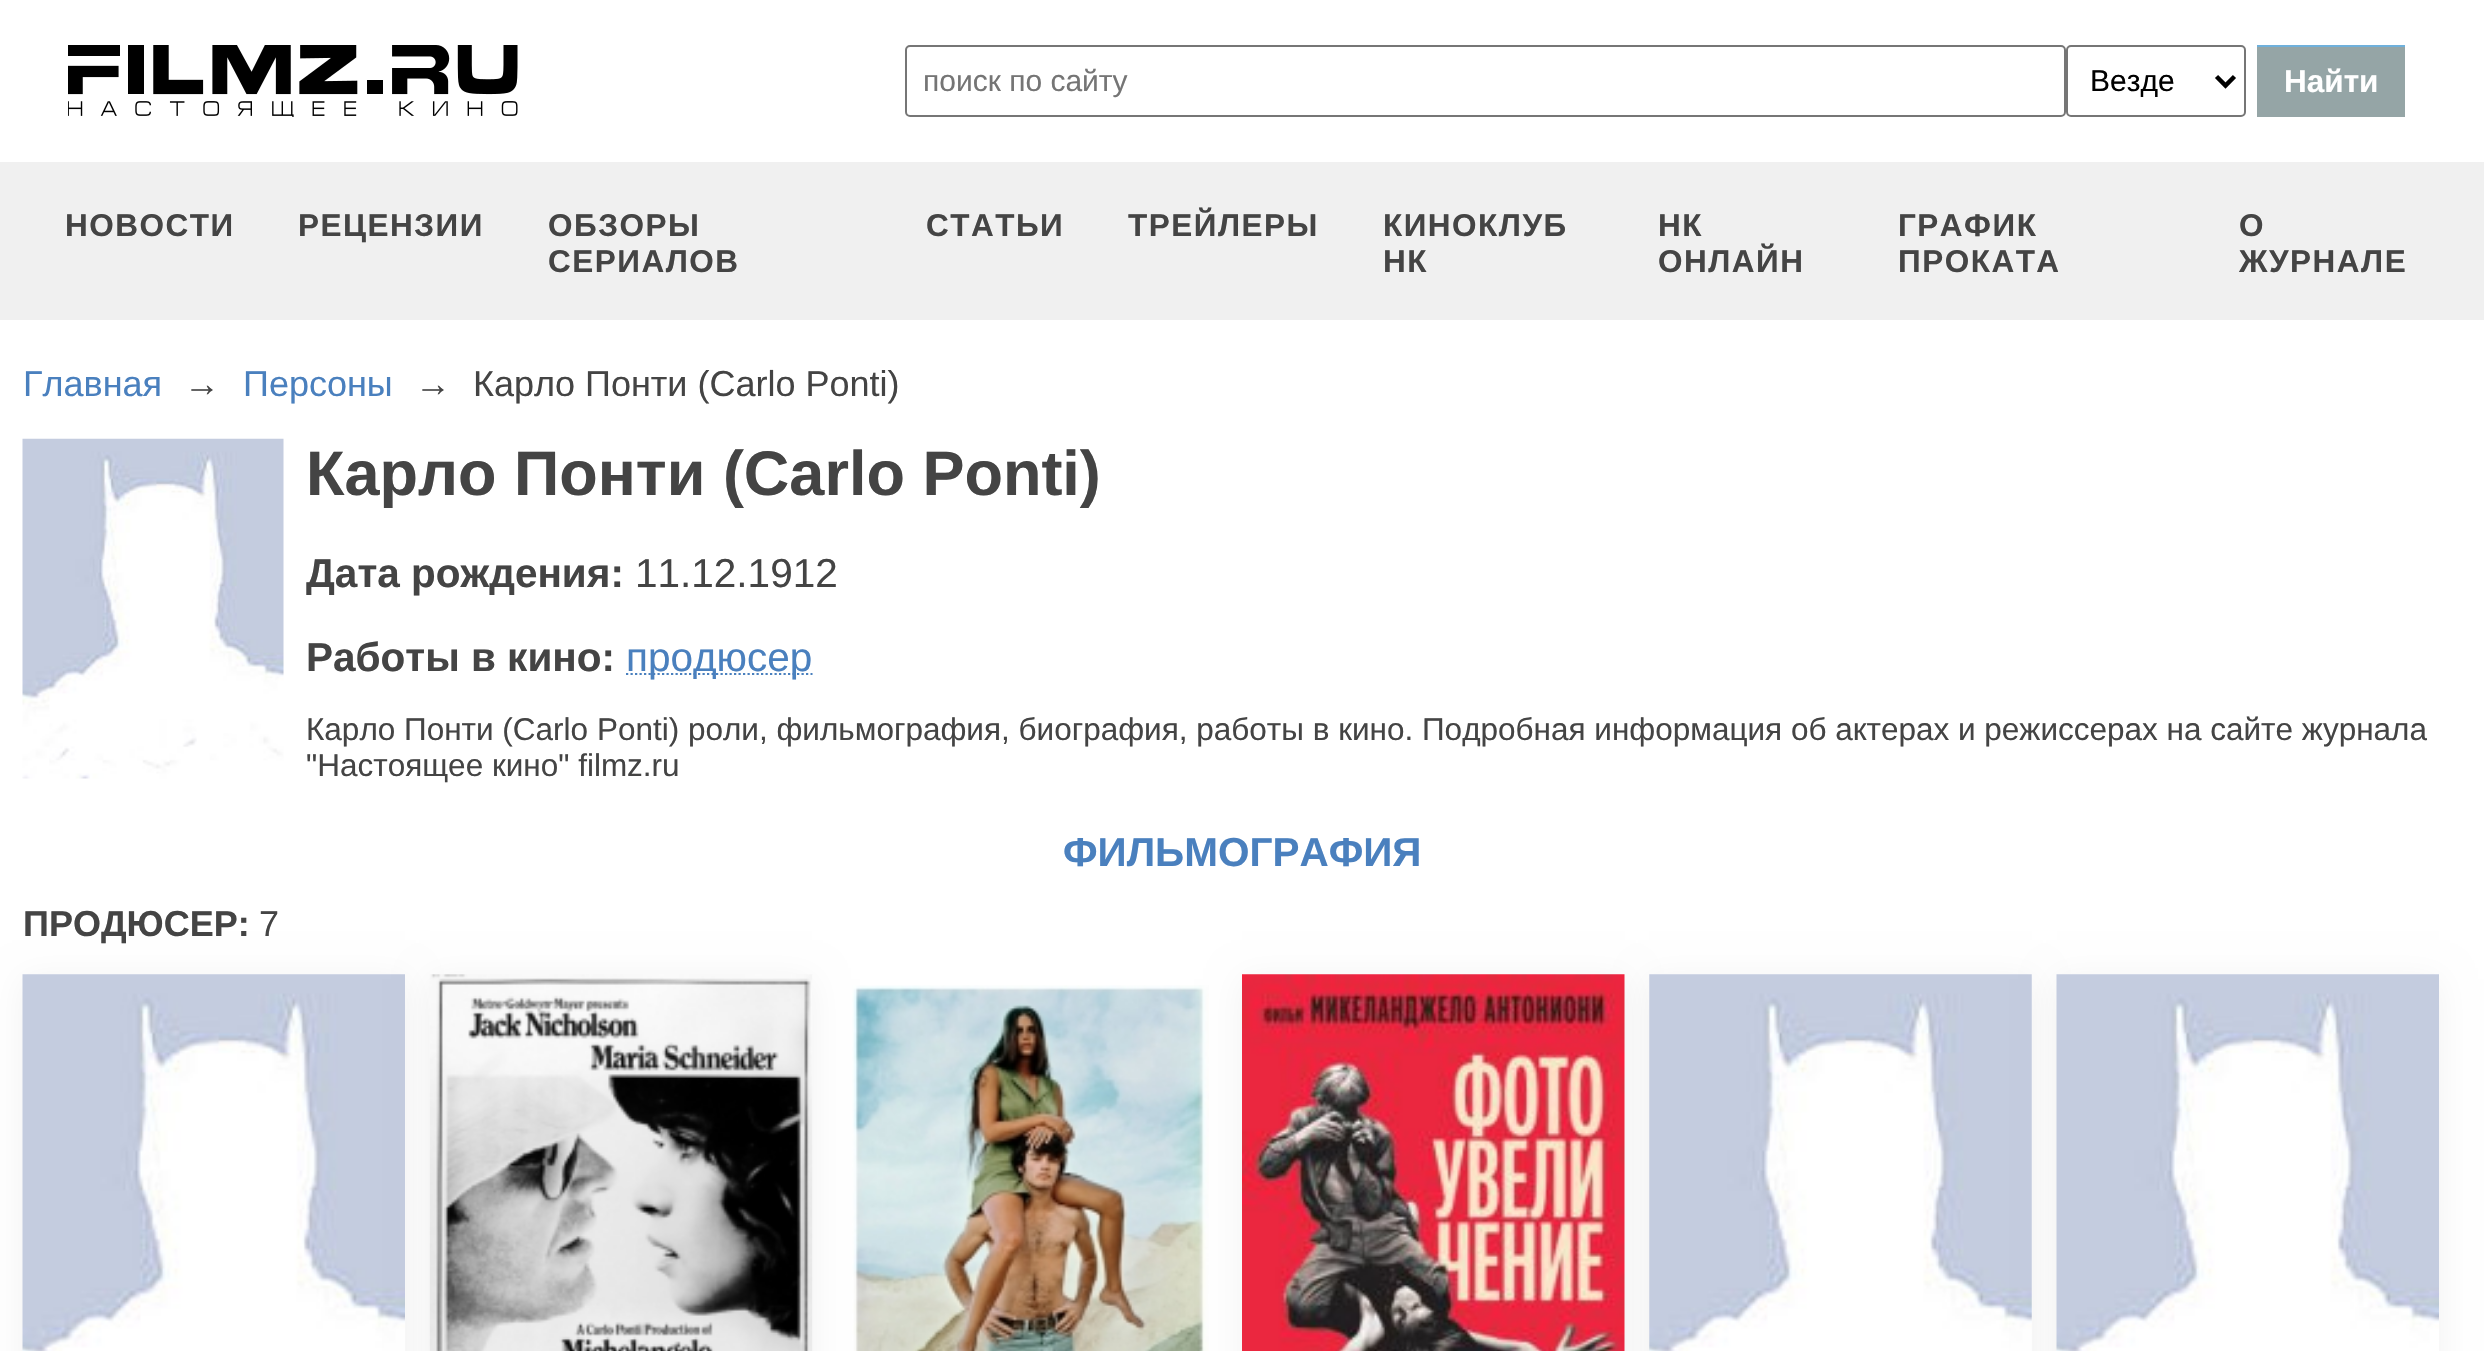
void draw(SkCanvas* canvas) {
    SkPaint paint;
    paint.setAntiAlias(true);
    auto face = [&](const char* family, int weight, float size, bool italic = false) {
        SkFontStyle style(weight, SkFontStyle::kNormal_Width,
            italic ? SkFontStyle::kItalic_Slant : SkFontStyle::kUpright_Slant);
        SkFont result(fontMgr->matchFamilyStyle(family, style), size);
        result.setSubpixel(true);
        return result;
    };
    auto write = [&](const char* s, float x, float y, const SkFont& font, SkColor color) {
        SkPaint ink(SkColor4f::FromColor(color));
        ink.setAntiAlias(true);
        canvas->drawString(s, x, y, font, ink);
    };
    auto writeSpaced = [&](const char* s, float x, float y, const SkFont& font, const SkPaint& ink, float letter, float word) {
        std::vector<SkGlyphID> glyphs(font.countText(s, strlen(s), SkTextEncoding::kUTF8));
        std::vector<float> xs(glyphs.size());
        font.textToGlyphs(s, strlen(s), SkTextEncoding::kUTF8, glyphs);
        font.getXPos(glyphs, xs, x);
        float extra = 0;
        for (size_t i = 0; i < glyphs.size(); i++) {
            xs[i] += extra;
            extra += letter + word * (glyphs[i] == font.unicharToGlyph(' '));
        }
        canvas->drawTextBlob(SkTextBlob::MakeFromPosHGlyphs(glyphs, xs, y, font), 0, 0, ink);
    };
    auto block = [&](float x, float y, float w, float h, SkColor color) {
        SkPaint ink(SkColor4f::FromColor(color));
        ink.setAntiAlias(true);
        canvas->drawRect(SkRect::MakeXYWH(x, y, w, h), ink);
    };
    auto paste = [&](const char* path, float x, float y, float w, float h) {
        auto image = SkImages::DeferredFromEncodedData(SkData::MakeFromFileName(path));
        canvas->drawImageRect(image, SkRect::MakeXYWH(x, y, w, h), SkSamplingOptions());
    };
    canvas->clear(SK_ColorWHITE);
    paste("pic1.png", 68, 45, 450, 72);
    paint.setStyle(SkPaint::kStroke_Style);
    paint.setStrokeWidth(2);
    paint.setColor(SkColorSetRGB(118, 118, 118));
    canvas->drawRoundRect(SkRect::MakeXYWH(906, 46, 1159, 70), 4, 4, paint);
    auto kFont1 = face("Liberation Sans", 400, 30);
    write("поиск по сайту", 923, 91, kFont1, SkColorSetRGB(117, 117, 117));
    canvas->drawRoundRect(SkRect::MakeXYWH(2067, 46, 178, 70), 4, 4, paint);
    paint.setStrokeWidth(4.5f);
    paint.setColor(SK_ColorBLACK);
    canvas->drawPath(SkPathBuilder().moveTo(2216.5f, 76.5f).lineTo(2225.5f, 85.5f).lineTo(2234.5f, 76.5f).detach(), paint);
    write("Везде", 2090, 91, kFont1, SK_ColorBLACK);
    block(2257, 47, 148, 70, SkColorSetRGB(149, 165, 166));
    block(2257, 45, 148, 2, SkColorSetRGB(111, 176, 219));
    auto kFont2 = face("Liberation Sans", 700, 31.5f);
    write("Найти", 2284, 92, kFont2, SK_ColorWHITE);
    block(0, 162, 2484, 158, SkColorSetRGB(240, 240, 240));
    paint.setStyle(SkPaint::kFill_Style);
    paint.setColor(SkColorSetRGB(68, 68, 68));
    writeSpaced("НОВОСТИ", 65, 236, kFont2, paint, 1.5f, 0);
    writeSpaced("РЕЦЕНЗИИ", 298, 236, kFont2, paint, 1.5f, 0);
    writeSpaced("ОБЗОРЫ", 548, 236, kFont2, paint, 1.5f, 0);
    writeSpaced("СЕРИАЛОВ", 548, 272, kFont2, paint, 1.5f, 0);
    writeSpaced("СТАТЬИ", 926, 236, kFont2, paint, 1.5f, 0);
    writeSpaced("ТРЕЙЛЕРЫ", 1128, 236, kFont2, paint, 1.5f, 0);
    writeSpaced("КИНОКЛУБ", 1383, 236, kFont2, paint, 1.5f, 0);
    writeSpaced("НК", 1383, 272, kFont2, paint, 1.5f, 0);
    writeSpaced("НК", 1658, 236, kFont2, paint, 1.5f, 0);
    writeSpaced("ОНЛАЙН", 1658, 272, kFont2, paint, 1.5f, 0);
    writeSpaced("ГРАФИК", 1898, 236, kFont2, paint, 1.5f, 0);
    writeSpaced("ПРОКАТА", 1898, 272, kFont2, paint, 1.5f, 0);
    writeSpaced("О", 2239, 236, kFont2, paint, 1.5f, 0);
    writeSpaced("ЖУРНАЛЕ", 2239, 272, kFont2, paint, 1.5f, 0);
    auto kFont3 = face("Liberation Sans", 400, 36);
    write("Главная", 23, 396, kFont3, SkColorSetRGB(74, 128, 190));
    write("→", 184, 396, kFont3, SkColorSetRGB(68, 68, 68));
    write("Персоны", 243, 396, kFont3, SkColorSetRGB(74, 128, 190));
    write("→", 415, 396, kFont3, SkColorSetRGB(68, 68, 68));
    write("Карло Понти (Carlo Ponti)", 473, 396, kFont3, SkColorSetRGB(68, 68, 68));
    paste("pic2.png", 22, 438, 262, 341);
    auto kFont4 = face("Liberation Sans", 700, 63);
    write("Карло Понти (Carlo Ponti)", 306, 495, kFont4, SkColorSetRGB(68, 68, 68));
    auto kFont5 = face("Liberation Sans", 700, 40.5f);
    write("Дата рождения:", 306, 587, kFont5, SkColorSetRGB(68, 68, 68));
    auto kFont6 = face("Liberation Sans", 400, 40.5f);
    write("11.12.1912", 635, 587, kFont6, SkColorSetRGB(68, 68, 68));
    write("Работы в кино:", 306, 671, kFont5, SkColorSetRGB(68, 68, 68));
    paint.setStyle(SkPaint::kStroke_Style);
    paint.setStrokeWidth(2.2f);
    paint.setColor(SkColorSetRGB(74, 128, 190));
    paint.setPathEffect(SkDashPathEffect::Make({{2.25f, 2.25f}}, 0));
    canvas->drawPath(SkPathBuilder().moveTo(626, 674).lineTo(812.5f, 674).detach(), paint);
    paint.setPathEffect(nullptr);
    write("продюсер", 626, 671, kFont6, SkColorSetRGB(74, 128, 190));
    auto kFont7 = face("Liberation Sans", 400, 31.5f);
    write("Карло Понти (Carlo Ponti) роли, фильмография, биография, работы в кино. Подробная информация об актерах и режиссерах на сайте журнала", 306, 740, kFont7, SkColorSetRGB(68, 68, 68));
    write("\"Настоящее кино\" filmz.ru", 306, 776, kFont7, SkColorSetRGB(68, 68, 68));
    write("ФИЛЬМОГРАФИЯ", 1063, 866, kFont5, SkColorSetRGB(74, 128, 190));
    auto kFont8 = face("Liberation Sans", 700, 36);
    write("ПРОДЮСЕР:", 23, 936, kFont8, SkColorSetRGB(68, 68, 68));
    write("7", 259, 936, kFont3, SkColorSetRGB(68, 68, 68));
    paint.setStyle(SkPaint::kFill_Style);
    paint.setColor(SkColorSetARGB(13, 0, 0, 0));
    paint.setMaskFilter(SkMaskFilter::MakeBlur(kNormal_SkBlurStyle, 16));
    canvas->drawRect(SkRect::MakeXYWH(23, 979, 382, 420), paint);
    paint.setMaskFilter(nullptr);
    paste("pic3.png", 22, 974, 383, 377);
    paint.setMaskFilter(SkMaskFilter::MakeBlur(kNormal_SkBlurStyle, 16));
    canvas->drawRect(SkRect::MakeXYWH(430, 979, 382, 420), paint);
    paint.setMaskFilter(nullptr);
    paste("pic4.png", 429, 974, 384, 377);
    paste("pic5.png", 852, 985, 357, 366);
    paint.setMaskFilter(SkMaskFilter::MakeBlur(kNormal_SkBlurStyle, 16));
    canvas->drawRect(SkRect::MakeXYWH(1242, 979, 383, 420), paint);
    paint.setMaskFilter(nullptr);
    paste("pic6.png", 1242, 974, 383, 377);
    paint.setMaskFilter(SkMaskFilter::MakeBlur(kNormal_SkBlurStyle, 16));
    canvas->drawRect(SkRect::MakeXYWH(1649, 979, 383, 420), paint);
    paint.setMaskFilter(nullptr);
    paste("pic7.png", 1649, 974, 383, 377);
    paint.setMaskFilter(SkMaskFilter::MakeBlur(kNormal_SkBlurStyle, 16));
    canvas->drawRect(SkRect::MakeXYWH(2057, 979, 382, 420), paint);
    paint.setMaskFilter(nullptr);
    paste("pic8.png", 2056, 974, 383, 377);
}
